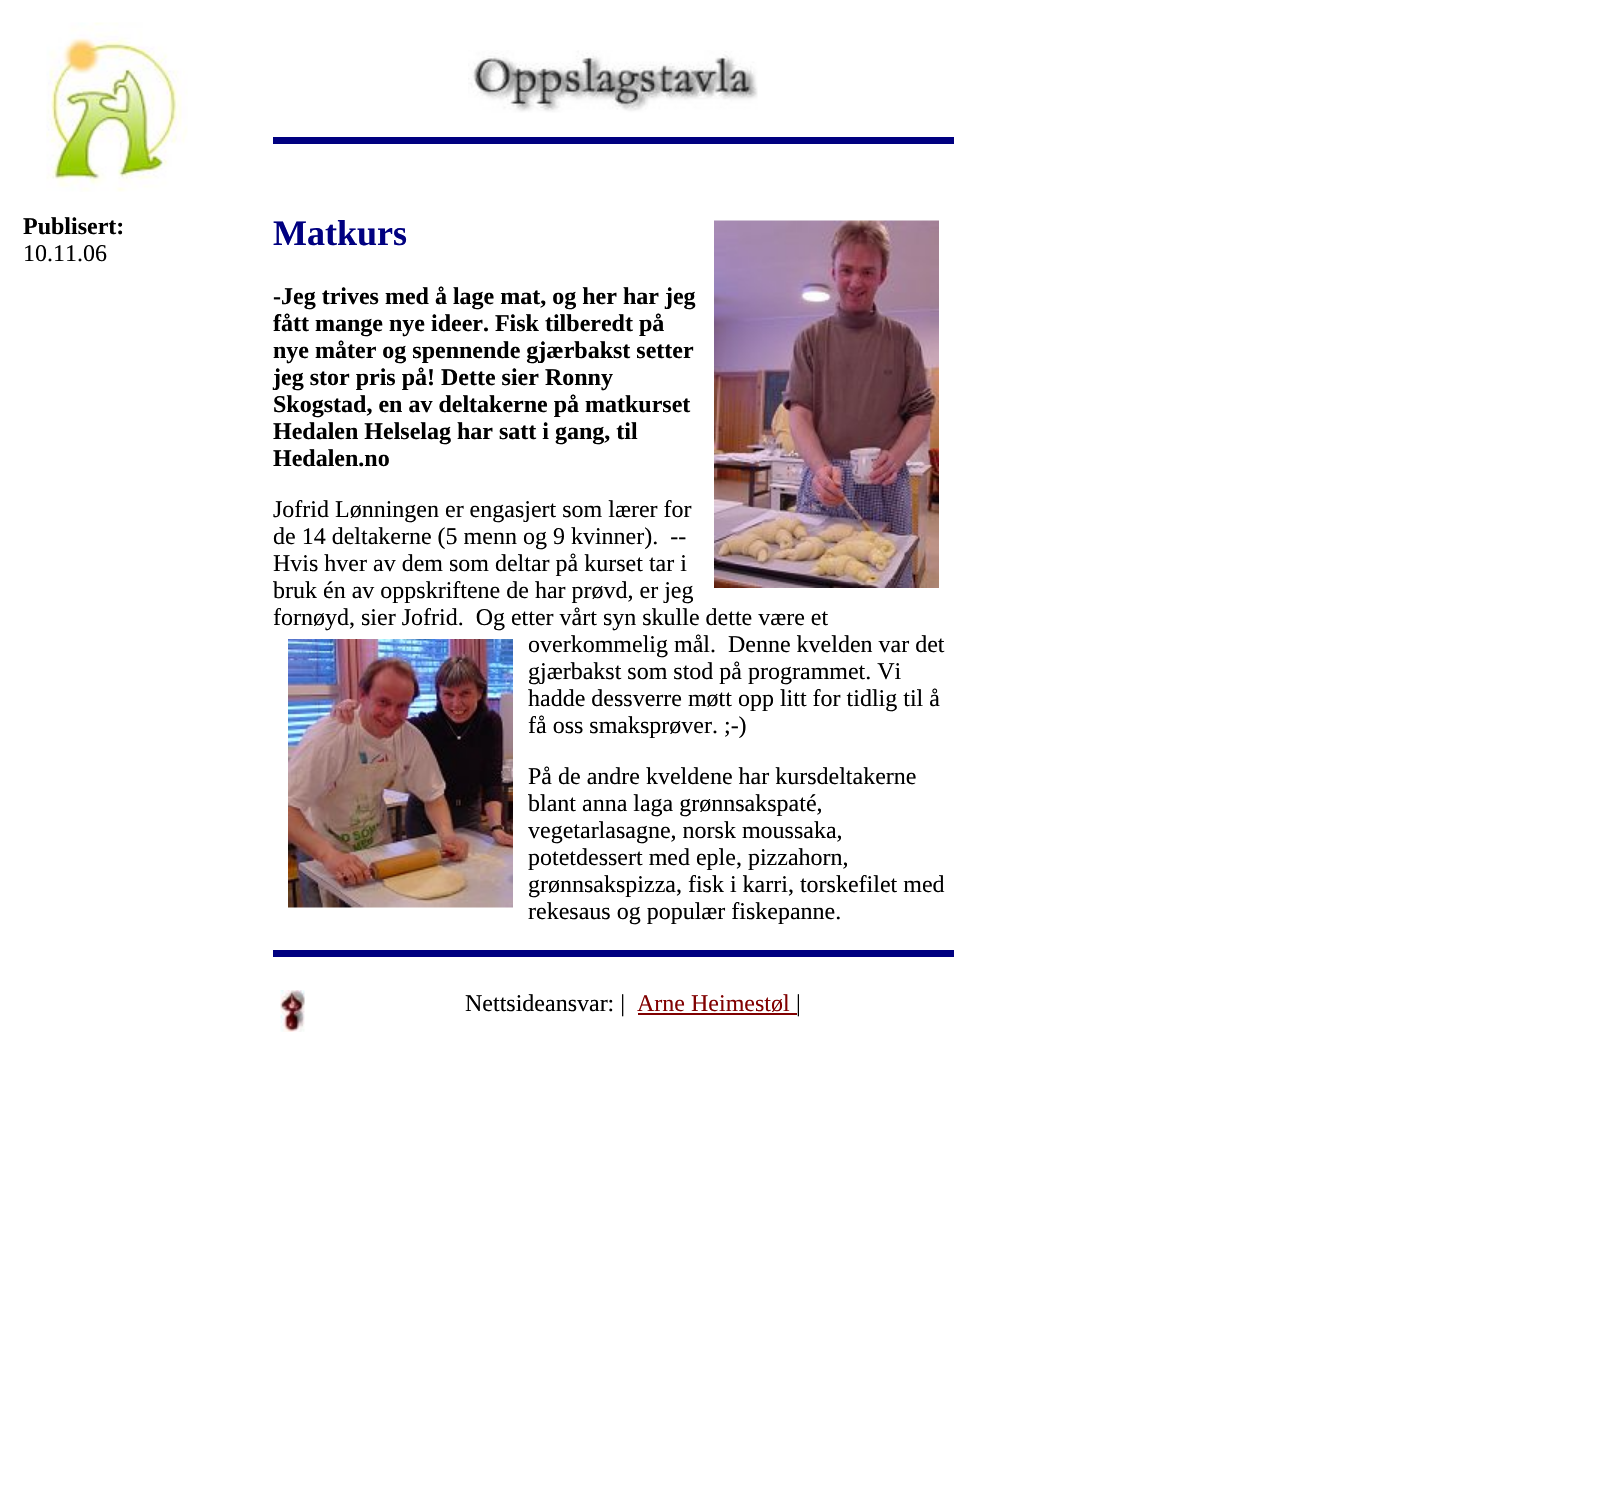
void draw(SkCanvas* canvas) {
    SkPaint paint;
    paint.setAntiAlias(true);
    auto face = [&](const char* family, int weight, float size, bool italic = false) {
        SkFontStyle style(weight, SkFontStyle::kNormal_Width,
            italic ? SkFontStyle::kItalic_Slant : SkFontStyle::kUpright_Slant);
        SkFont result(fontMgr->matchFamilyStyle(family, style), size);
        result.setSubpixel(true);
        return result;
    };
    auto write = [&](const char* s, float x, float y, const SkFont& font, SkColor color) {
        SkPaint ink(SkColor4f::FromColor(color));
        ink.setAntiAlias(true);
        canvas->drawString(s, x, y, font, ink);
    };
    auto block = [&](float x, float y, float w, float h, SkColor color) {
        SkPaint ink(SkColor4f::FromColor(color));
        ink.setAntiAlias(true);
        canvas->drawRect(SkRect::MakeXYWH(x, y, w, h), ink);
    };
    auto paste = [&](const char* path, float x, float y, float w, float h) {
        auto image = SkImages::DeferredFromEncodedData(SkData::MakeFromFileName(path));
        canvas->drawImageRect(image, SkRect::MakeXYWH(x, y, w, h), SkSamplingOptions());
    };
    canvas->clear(SK_ColorWHITE);
    paste("pic1.png", 46, 22, 142, 170);
    paste("pic2.png", 468, 50, 290, 63);
    block(273, 137, 681, 7, SkColorSetRGB(0, 0, 128));
    auto kFont1 = face("Liberation Serif", 700, 24);
    write("Publisert:", 23, 234, kFont1, SK_ColorBLACK);
    auto kFont2 = face("Liberation Serif", 400, 24);
    write("10.11.06", 23, 261, kFont2, SK_ColorBLACK);
    auto kFont3 = face("Liberation Serif", 700, 36);
    write("Matkurs", 273, 245, kFont3, SkColorSetRGB(0, 0, 128));
    paste("pic3.png", 714, 220, 225, 368);
    write("-Jeg trives med å lage mat, og her har jeg", 273, 304, kFont1, SK_ColorBLACK);
    write("fått mange nye ideer. Fisk tilberedt på", 273, 331, kFont1, SK_ColorBLACK);
    write("nye måter og spennende gjærbakst setter", 273, 358, kFont1, SK_ColorBLACK);
    write("jeg stor pris på! Dette sier Ronny", 273, 385, kFont1, SK_ColorBLACK);
    write("Skogstad, en av deltakerne på matkurset", 273, 412, kFont1, SK_ColorBLACK);
    write("Hedalen Helselag har satt i gang, til", 273, 439, kFont1, SK_ColorBLACK);
    write("Hedalen.no", 273, 466, kFont1, SK_ColorBLACK);
    write("Jofrid Lønningen er engasjert som lærer for", 273, 517, kFont2, SK_ColorBLACK);
    write("de 14 deltakerne (5 menn og 9 kvinner).  --", 273, 544, kFont2, SK_ColorBLACK);
    write("Hvis hver av dem som deltar på kurset tar i", 273, 571, kFont2, SK_ColorBLACK);
    write("bruk én av oppskriftene de har prøvd, er jeg", 273, 598, kFont2, SK_ColorBLACK);
    write("fornøyd, sier Jofrid.  Og etter vårt syn skulle dette være et", 273, 625, kFont2, SK_ColorBLACK);
    paste("pic4.png", 288, 639, 225, 269);
    write("overkommelig mål.  Denne kvelden var det", 528, 652, kFont2, SK_ColorBLACK);
    write("gjærbakst som stod på programmet. Vi", 528, 679, kFont2, SK_ColorBLACK);
    write("hadde dessverre møtt opp litt for tidlig til å", 528, 706, kFont2, SK_ColorBLACK);
    write("få oss smaksprøver. ;-)", 528, 733, kFont2, SK_ColorBLACK);
    write("På de andre kveldene har kursdeltakerne", 528, 784, kFont2, SK_ColorBLACK);
    write("blant anna laga grønnsakspaté,", 528, 811, kFont2, SK_ColorBLACK);
    write("vegetarlasagne, norsk moussaka,", 528, 838, kFont2, SK_ColorBLACK);
    write("potetdessert med eple, pizzahorn,", 528, 865, kFont2, SK_ColorBLACK);
    write("grønnsakspizza, fisk i karri, torskefilet med", 528, 892, kFont2, SK_ColorBLACK);
    write("rekesaus og populær fiskepanne.", 528, 919, kFont2, SK_ColorBLACK);
    block(273, 950, 681, 7, SkColorSetRGB(0, 0, 128));
    paste("pic5.png", 280, 990, 25, 42);
    write("Nettsideansvar: |", 465, 1011, kFont2, SK_ColorBLACK);
    write("Arne Heimestøl", 637, 1011, kFont2, SkColorSetRGB(128, 0, 0));
    write("|", 796, 1011, kFont2, SK_ColorBLACK);
    block(638, 1013, 159, 2, SkColorSetRGB(128, 0, 0));
}
